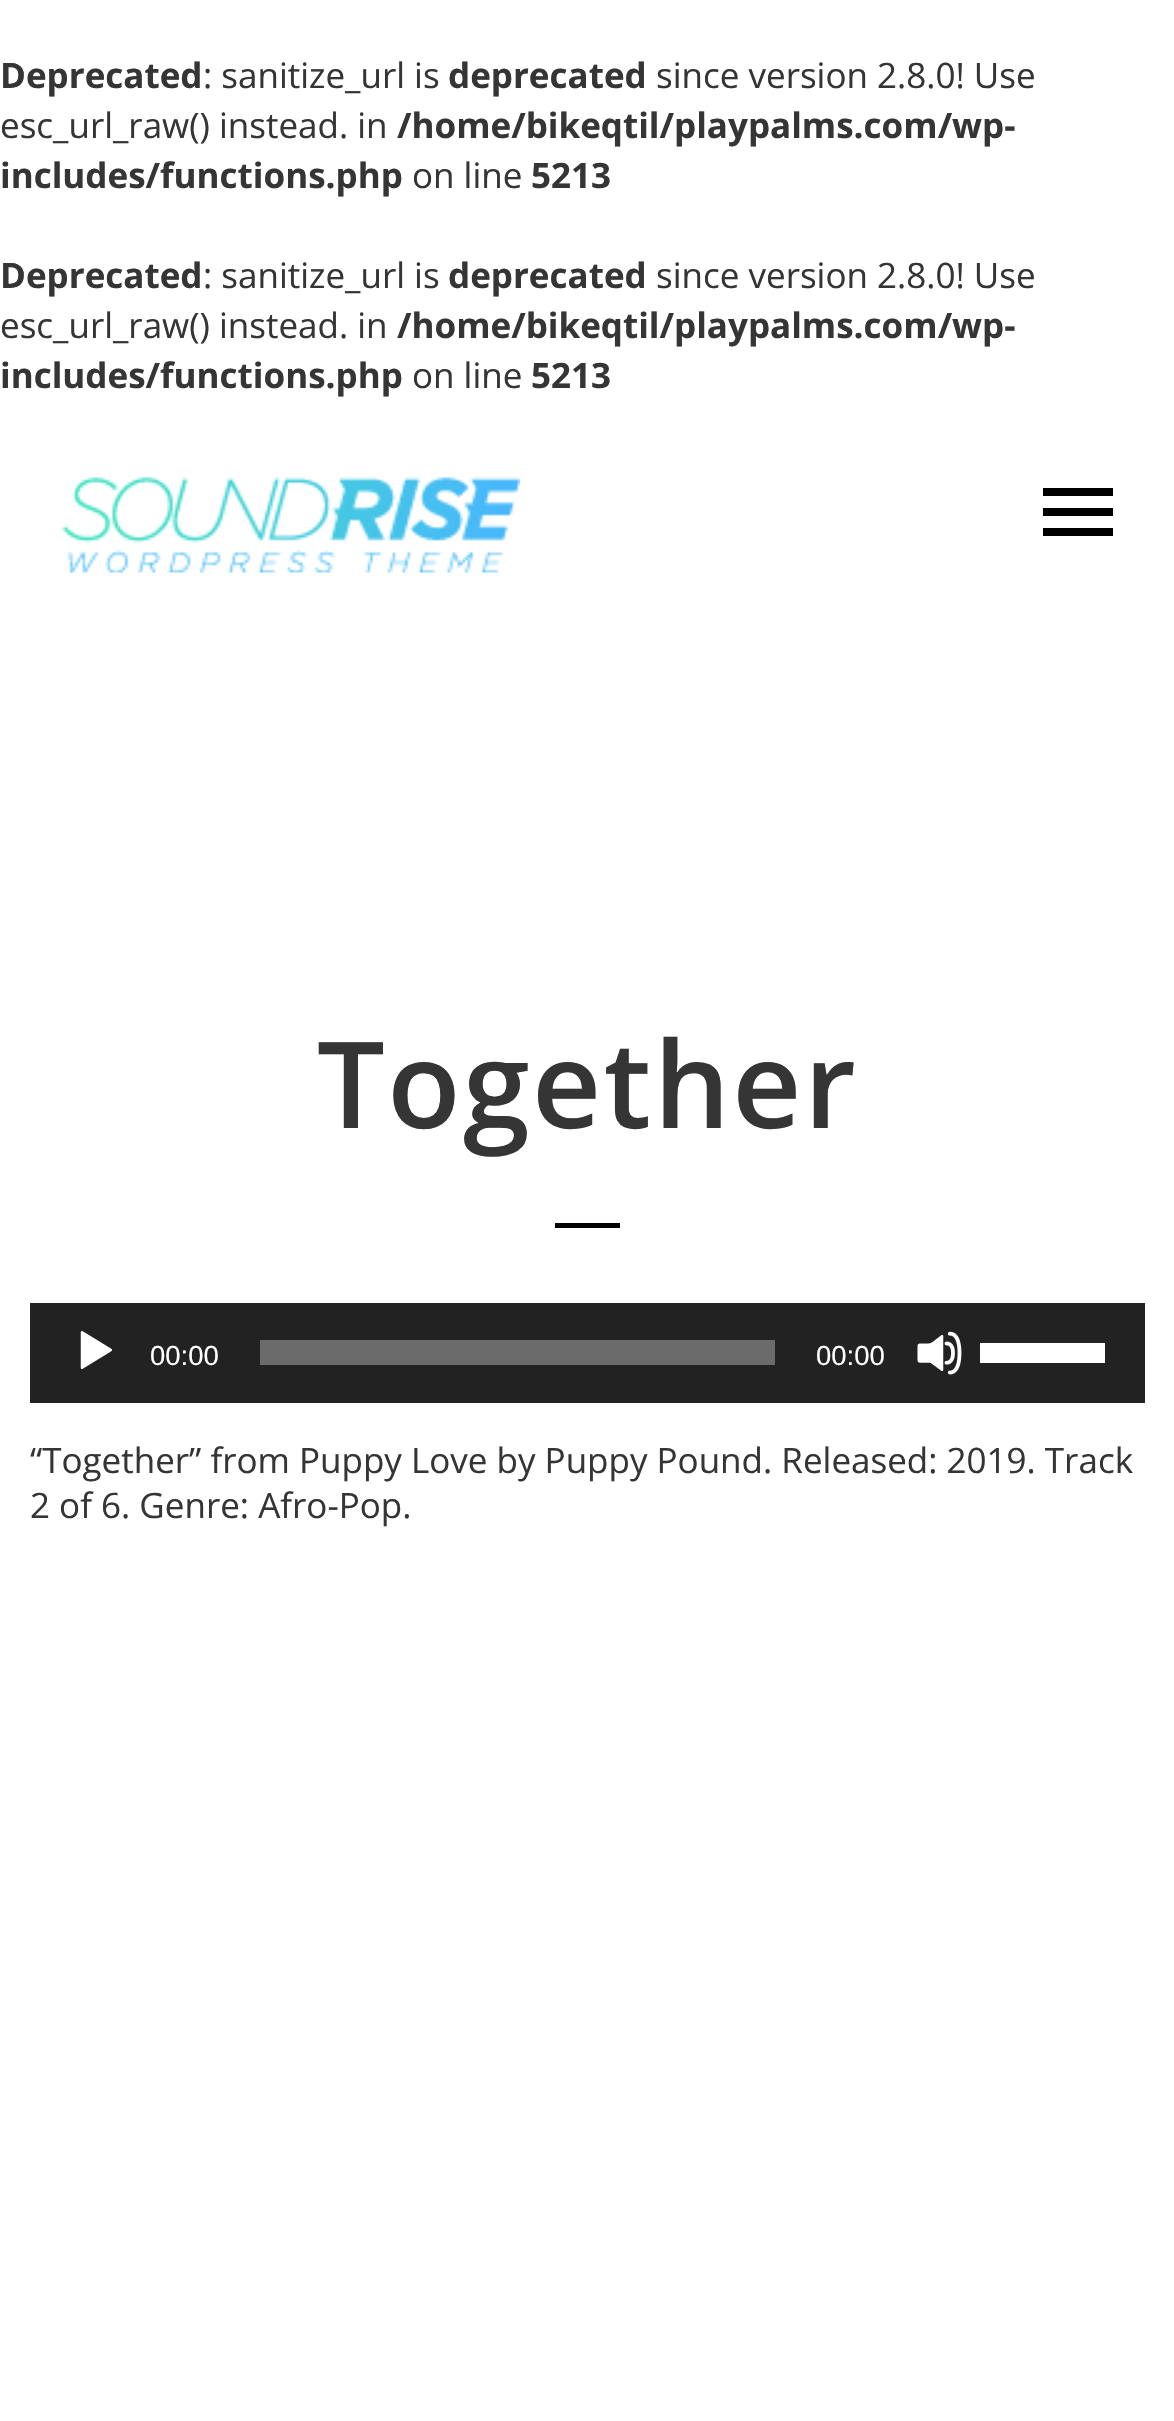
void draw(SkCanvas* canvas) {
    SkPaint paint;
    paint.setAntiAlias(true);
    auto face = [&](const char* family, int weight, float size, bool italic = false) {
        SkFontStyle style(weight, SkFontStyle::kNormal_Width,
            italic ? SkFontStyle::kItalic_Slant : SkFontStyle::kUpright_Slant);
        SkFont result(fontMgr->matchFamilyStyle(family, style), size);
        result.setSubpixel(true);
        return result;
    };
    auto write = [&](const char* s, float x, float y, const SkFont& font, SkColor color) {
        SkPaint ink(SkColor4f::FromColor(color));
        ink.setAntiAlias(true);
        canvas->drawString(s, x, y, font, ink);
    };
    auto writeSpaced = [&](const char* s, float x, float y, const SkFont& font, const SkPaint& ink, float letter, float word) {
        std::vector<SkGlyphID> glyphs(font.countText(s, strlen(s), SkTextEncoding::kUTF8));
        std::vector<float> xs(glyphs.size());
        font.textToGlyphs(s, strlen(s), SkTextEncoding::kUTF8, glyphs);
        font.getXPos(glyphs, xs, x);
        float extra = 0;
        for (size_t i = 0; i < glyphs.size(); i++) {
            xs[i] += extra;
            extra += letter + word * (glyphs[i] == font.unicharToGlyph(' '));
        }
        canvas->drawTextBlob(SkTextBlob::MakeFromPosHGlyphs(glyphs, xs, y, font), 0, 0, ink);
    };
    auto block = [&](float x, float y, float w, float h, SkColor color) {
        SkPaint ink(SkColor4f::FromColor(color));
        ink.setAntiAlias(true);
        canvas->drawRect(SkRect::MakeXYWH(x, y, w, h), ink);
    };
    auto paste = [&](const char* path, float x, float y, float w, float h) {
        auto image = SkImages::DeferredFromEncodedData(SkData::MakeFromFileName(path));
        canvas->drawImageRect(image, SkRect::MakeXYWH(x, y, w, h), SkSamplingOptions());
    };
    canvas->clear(SK_ColorWHITE);
    auto kFont1 = face("Open Sans", 700, 35);
    write("Deprecated", 0, 88, kFont1, SkColorSetRGB(53, 53, 53));
    auto kFont2 = face("Open Sans", 400, 35);
    write(": sanitize_url is", 203, 88, kFont2, SkColorSetRGB(53, 53, 53));
    write("deprecated", 448, 88, kFont1, SkColorSetRGB(53, 53, 53));
    write("since version 2.8.0! Use", 656, 88, kFont2, SkColorSetRGB(53, 53, 53));
    write("esc_url_raw() instead. in", 0, 138, kFont2, SkColorSetRGB(53, 53, 53));
    write("/home/bikeqtil/playpalms.com/wp-", 397, 138, kFont1, SkColorSetRGB(53, 53, 53));
    write("includes/functions.php", 0, 188, kFont1, SkColorSetRGB(53, 53, 53));
    write("on line", 412, 188, kFont2, SkColorSetRGB(53, 53, 53));
    write("5213", 531, 188, kFont1, SkColorSetRGB(53, 53, 53));
    write("Deprecated", 0, 288, kFont1, SkColorSetRGB(53, 53, 53));
    write(": sanitize_url is", 203, 288, kFont2, SkColorSetRGB(53, 53, 53));
    write("deprecated", 448, 288, kFont1, SkColorSetRGB(53, 53, 53));
    write("since version 2.8.0! Use", 656, 288, kFont2, SkColorSetRGB(53, 53, 53));
    write("esc_url_raw() instead. in", 0, 338, kFont2, SkColorSetRGB(53, 53, 53));
    write("/home/bikeqtil/playpalms.com/wp-", 397, 338, kFont1, SkColorSetRGB(53, 53, 53));
    write("includes/functions.php", 0, 388, kFont1, SkColorSetRGB(53, 53, 53));
    write("on line", 412, 388, kFont2, SkColorSetRGB(53, 53, 53));
    write("5213", 531, 388, kFont1, SkColorSetRGB(53, 53, 53));
    paste("pic1.png", 62, 476, 458, 97);
    block(1043, 488, 70, 8, SK_ColorBLACK);
    block(1043, 508, 70, 8, SK_ColorBLACK);
    block(1043, 528, 70, 8, SK_ColorBLACK);
    auto kFont3 = face("Open Sans", 600, 120);
    paint.setColor(SkColorSetRGB(53, 53, 53));
    writeSpaced("Together", 317, 1128, kFont3, paint, 2.5f, 0);
    block(555, 1223, 65, 5, SK_ColorBLACK);
    block(30, 1303, 1115, 100, SkColorSetRGB(34, 34, 34));
    paste("pic2.png", 80, 1331, 32, 39);
    auto kFont4 = face("Liberation Sans", 400, 27.5f);
    write("00:00", 150, 1365, kFont4, SK_ColorWHITE);
    block(260, 1340, 515, 25, SkColorSetRGB(107, 107, 107));
    write("00:00", 816, 1365, kFont4, SK_ColorWHITE);
    paste("pic3.png", 917, 1331, 45, 44);
    block(980, 1343, 125, 20, SK_ColorWHITE);
    write("“Together” from Puppy Love by Puppy Pound. Released: 2019. Track", 30, 1473, kFont2, SkColorSetRGB(53, 53, 53));
    write("2 of 6. Genre: Afro-Pop.", 30, 1518, kFont2, SkColorSetRGB(53, 53, 53));
}
